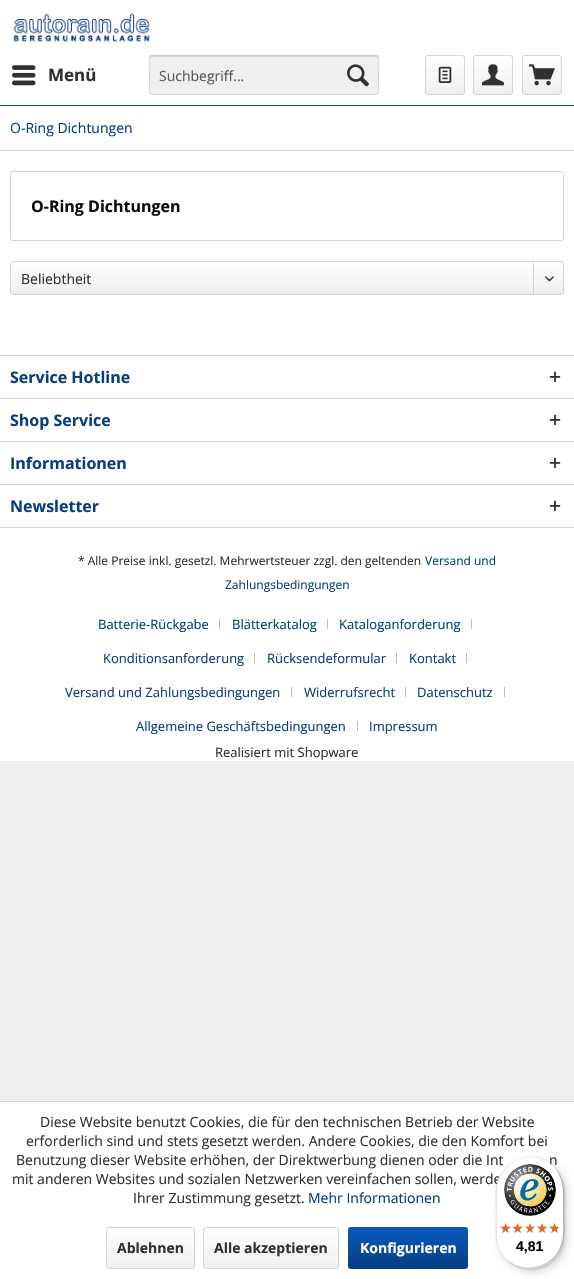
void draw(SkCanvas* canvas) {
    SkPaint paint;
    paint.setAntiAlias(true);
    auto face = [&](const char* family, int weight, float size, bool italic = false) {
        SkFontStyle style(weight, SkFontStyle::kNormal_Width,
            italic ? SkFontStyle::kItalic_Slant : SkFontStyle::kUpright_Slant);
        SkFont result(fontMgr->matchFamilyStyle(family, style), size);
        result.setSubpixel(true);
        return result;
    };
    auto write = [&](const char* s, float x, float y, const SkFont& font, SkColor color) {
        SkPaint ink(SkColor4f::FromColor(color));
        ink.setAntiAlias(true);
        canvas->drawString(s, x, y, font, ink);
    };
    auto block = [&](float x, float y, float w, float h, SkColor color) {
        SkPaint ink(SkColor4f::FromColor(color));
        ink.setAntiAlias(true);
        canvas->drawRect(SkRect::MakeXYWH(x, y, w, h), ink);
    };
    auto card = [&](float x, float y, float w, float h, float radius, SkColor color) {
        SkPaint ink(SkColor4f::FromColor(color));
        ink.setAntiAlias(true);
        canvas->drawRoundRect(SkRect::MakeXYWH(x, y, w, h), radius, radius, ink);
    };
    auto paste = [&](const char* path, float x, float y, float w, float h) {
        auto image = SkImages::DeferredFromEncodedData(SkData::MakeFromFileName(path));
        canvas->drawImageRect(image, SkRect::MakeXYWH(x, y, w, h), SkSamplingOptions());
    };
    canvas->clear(SkColorSetRGB(238, 238, 238));
    block(0, 0, 574, 105, SK_ColorWHITE);
    block(0, 105, 574, 1, SkColorSetRGB(8, 62, 128));
    paste("pic1.png", 13, 13, 137, 29);
    paste("pic2.png", 12, 65, 24, 21);
    auto kFont1 = face("Open Sans", 700, 17);
    write("Menü", 48, 81, kFont1, SkColorSetRGB(48, 48, 48));
    card(149, 55, 230, 40, 3, SkColorSetRGB(239, 239, 239));
    paint.setColor(SkColorSetRGB(213, 213, 213));
    canvas->drawPath(SkPathBuilder().moveTo(152, 57).lineTo(376, 57).cubicTo(377, 57, 378, 58, 378, 59).cubicTo(378, 58, 378, 56, 376, 56).lineTo(152, 56).cubicTo(150, 56, 150, 58, 150, 59).cubicTo(150, 58, 151, 57, 152, 57).close().detach(), paint);
    paint.setStyle(SkPaint::kStroke_Style);
    paint.setStrokeWidth(1);
    paint.setColor(SkColorSetRGB(200, 200, 200));
    canvas->drawPath(SkPathBuilder().moveTo(150, 56).lineTo(152, 55.5f).lineTo(376, 55.5f).lineTo(378, 56).detach(), paint);
    paint.setColor(SkColorSetRGB(213, 213, 213));
    canvas->drawPath(SkPathBuilder().moveTo(378, 56).cubicTo(379.5f, 58, 378.5f, 72, 378.5f, 75).lineTo(378.5f, 86.5f).cubicTo(378.5f, 88, 380, 94.5f, 376, 94.5f).lineTo(152, 94.5f).cubicTo(148, 94.5f, 149.5f, 88, 149.5f, 86.5f).lineTo(149.5f, 75).cubicTo(149.5f, 72, 148.5f, 58, 150, 56).detach(), paint);
    auto kFont2 = face("Open Sans", 400, 14);
    write("Suchbegriff...", 159, 81, kFont2, SkColorSetRGB(86, 86, 86));
    paste("pic3.png", 347, 64, 22, 23);
    paint.setStyle(SkPaint::kFill_Style);
    {
        const SkColor colors[] = {SK_ColorWHITE, SkColorSetRGB(239, 239, 239)};
        const float stops[] = {0, 1};
        const SkPoint ends[] = {{445, 56}, {445, 94}};
        paint.setShader(SkGradientShader::MakeLinear(ends, colors, stops, 2, SkTileMode::kClamp));
        paint.setAlpha(255);
    }
    canvas->drawRoundRect(SkRect::MakeXYWH(426, 56, 38, 38), 2, 2, paint);
    paint.setStyle(SkPaint::kStroke_Style);
    paint.setShader(nullptr);
    paint.setColor(SkColorSetRGB(213, 213, 213));
    canvas->drawRoundRect(SkRect::MakeXYWH(425.5f, 55.5f, 39, 39), 2.5f, 2.5f, paint);
    paste("pic4.png", 438, 66, 14, 17);
    paint.setStyle(SkPaint::kFill_Style);
    {
        const SkColor colors[] = {SK_ColorWHITE, SkColorSetRGB(239, 239, 239)};
        const float stops[] = {0, 1};
        const SkPoint ends[] = {{493, 56}, {493, 94}};
        paint.setShader(SkGradientShader::MakeLinear(ends, colors, stops, 2, SkTileMode::kClamp));
        paint.setAlpha(255);
    }
    canvas->drawRoundRect(SkRect::MakeXYWH(474, 56, 38, 38), 2, 2, paint);
    paint.setStyle(SkPaint::kStroke_Style);
    paint.setShader(nullptr);
    paint.setColor(SkColorSetRGB(213, 213, 213));
    canvas->drawRoundRect(SkRect::MakeXYWH(473.5f, 55.5f, 39, 39), 2.5f, 2.5f, paint);
    paste("pic5.png", 482, 64, 22, 22);
    paint.setStyle(SkPaint::kFill_Style);
    {
        const SkColor colors[] = {SK_ColorWHITE, SkColorSetRGB(239, 239, 239)};
        const float stops[] = {0, 1};
        const SkPoint ends[] = {{542, 56}, {542, 94}};
        paint.setShader(SkGradientShader::MakeLinear(ends, colors, stops, 2, SkTileMode::kClamp));
        paint.setAlpha(255);
    }
    canvas->drawRoundRect(SkRect::MakeXYWH(523, 56, 38, 38), 2, 2, paint);
    paint.setStyle(SkPaint::kStroke_Style);
    paint.setShader(nullptr);
    paint.setColor(SkColorSetRGB(213, 213, 213));
    canvas->drawRoundRect(SkRect::MakeXYWH(522.5f, 55.5f, 39, 39), 2.5f, 2.5f, paint);
    paste("pic6.png", 529, 64, 26, 22);
    block(0, 106, 574, 249, SK_ColorWHITE);
    block(0, 150, 574, 1, SkColorSetRGB(213, 213, 213));
    write("O-Ring Dichtungen", 10, 133, kFont2, SkColorSetRGB(8, 62, 128));
    canvas->drawRoundRect(SkRect::MakeXYWH(10.5f, 171.5f, 553, 69), 2.5f, 2.5f, paint);
    auto kFont3 = face("Open Sans", 700, 16);
    write("O-Ring Dichtungen", 31, 212, kFont3, SkColorSetRGB(10, 10, 10));
    paint.setStyle(SkPaint::kFill_Style);
    {
        const SkColor colors[] = {SK_ColorWHITE, SkColorSetRGB(239, 239, 239)};
        const float stops[] = {0, 1};
        const SkPoint ends[] = {{287, 262}, {287, 294}};
        paint.setShader(SkGradientShader::MakeLinear(ends, colors, stops, 2, SkTileMode::kClamp));
        paint.setAlpha(255);
    }
    canvas->drawRoundRect(SkRect::MakeXYWH(11, 262, 552, 32), 2, 2, paint);
    paint.setStyle(SkPaint::kStroke_Style);
    paint.setShader(nullptr);
    paint.setColor(SkColorSetRGB(213, 213, 213));
    canvas->drawRoundRect(SkRect::MakeXYWH(10.5f, 261.5f, 553, 33), 2.5f, 2.5f, paint);
    write("Beliebtheit", 21, 284, kFont2, SkColorSetRGB(48, 48, 48));
    block(533, 262, 1, 33, SkColorSetRGB(213, 213, 213));
    paste("pic7.png", 545, 276, 9, 6);
    block(0, 356, 574, 405, SK_ColorWHITE);
    block(0, 355, 574, 1, SkColorSetRGB(213, 213, 213));
    write("Service Hotline", 10, 383, kFont3, SkColorSetRGB(8, 62, 128));
    paste("pic8.png", 549, 371, 12, 12);
    block(0, 398, 574, 1, SkColorSetRGB(213, 213, 213));
    write("Shop Service", 10, 426, kFont3, SkColorSetRGB(8, 62, 128));
    paste("pic8.png", 549, 414, 12, 12);
    block(0, 441, 574, 1, SkColorSetRGB(213, 213, 213));
    write("Informationen", 10, 469, kFont3, SkColorSetRGB(8, 62, 128));
    paste("pic8.png", 549, 457, 12, 12);
    block(0, 484, 574, 1, SkColorSetRGB(213, 213, 213));
    block(0, 527, 574, 1, SkColorSetRGB(213, 213, 213));
    write("Newsletter", 10, 512, kFont3, SkColorSetRGB(8, 62, 128));
    paste("pic8.png", 549, 500, 12, 12);
    auto kFont4 = face("Open Sans", 400, 12);
    write("* Alle Preise inkl. gesetzl. Mehrwertsteuer zzgl. den geltenden", 78, 565, kFont4, SkColorSetRGB(48, 48, 48));
    write("Versand und", 425, 565, kFont4, SkColorSetRGB(8, 62, 128));
    write("Zahlungsbedingungen", 225, 589, kFont4, SkColorSetRGB(8, 62, 128));
    auto kFont5 = face("Open Sans", 400, 13);
    write("Batterie-Rückgabe", 98, 629, kFont5, SkColorSetRGB(8, 62, 128));
    block(219, 619, 1, 10, SkColorSetRGB(188, 188, 188));
    write("Blätterkatalog", 232, 629, kFont5, SkColorSetRGB(8, 62, 128));
    block(327, 619, 1, 10, SkColorSetRGB(188, 188, 188));
    write("Kataloganforderung", 339, 629, kFont5, SkColorSetRGB(8, 62, 128));
    block(471, 619, 1, 10, SkColorSetRGB(188, 188, 188));
    write("Konditionsanforderung", 103, 663, kFont5, SkColorSetRGB(8, 62, 128));
    block(254, 653, 1, 10, SkColorSetRGB(188, 188, 188));
    write("Rücksendeformular", 267, 663, kFont5, SkColorSetRGB(8, 62, 128));
    block(396, 653, 1, 10, SkColorSetRGB(188, 188, 188));
    write("Kontakt", 409, 663, kFont5, SkColorSetRGB(8, 62, 128));
    block(466, 653, 1, 10, SkColorSetRGB(188, 188, 188));
    write("Versand und Zahlungsbedingungen", 65, 697, kFont5, SkColorSetRGB(8, 62, 128));
    block(291, 687, 1, 10, SkColorSetRGB(188, 188, 188));
    write("Widerrufsrecht", 304, 697, kFont5, SkColorSetRGB(8, 62, 128));
    block(405, 687, 1, 10, SkColorSetRGB(188, 188, 188));
    write("Datenschutz", 417, 697, kFont5, SkColorSetRGB(8, 62, 128));
    block(504, 687, 1, 10, SkColorSetRGB(188, 188, 188));
    write("Allgemeine Geschäftsbedingungen", 136, 731, kFont5, SkColorSetRGB(8, 62, 128));
    block(357, 721, 1, 10, SkColorSetRGB(188, 188, 188));
    write("Impressum", 369, 731, kFont5, SkColorSetRGB(8, 62, 128));
    write("Realisiert mit Shopware", 215, 757, kFont5, SkColorSetRGB(48, 48, 48));
    block(0, 1102, 574, 177, SK_ColorWHITE);
    block(0, 1101, 574, 1, SkColorSetRGB(213, 213, 213));
    write("Diese Website benutzt Cookies, die für den technischen Betrieb der Website", 40, 1127, kFont2, SkColorSetRGB(48, 48, 48));
    write("erforderlich sind und stets gesetzt werden. Andere Cookies, die den Komfort bei", 26, 1146, kFont2, SkColorSetRGB(48, 48, 48));
    write("Benutzung dieser Website erhöhen, der Direktwerbung dienen oder die Int", 16, 1165, kFont2, SkColorSetRGB(48, 48, 48));
    write("n", 549, 1165, kFont2, SkColorSetRGB(48, 48, 48));
    write("mit anderen Websites und sozialen Netzwerken vereinfachen sollen, werde", 12, 1184, kFont2, SkColorSetRGB(48, 48, 48));
    write("Ihrer Zustimmung gesetzt.", 133, 1203, kFont2, SkColorSetRGB(48, 48, 48));
    write("Mehr Informationen", 308, 1203, kFont2, SkColorSetRGB(8, 62, 128));
    paint.setStyle(SkPaint::kFill_Style);
    {
        const SkColor colors[] = {SK_ColorWHITE, SkColorSetRGB(239, 239, 239)};
        const float stops[] = {0, 1};
        const SkPoint ends[] = {{151, 1228}, {151, 1268}};
        paint.setShader(SkGradientShader::MakeLinear(ends, colors, stops, 2, SkTileMode::kClamp));
        paint.setAlpha(255);
    }
    canvas->drawRoundRect(SkRect::MakeXYWH(107, 1228, 87, 40), 2, 2, paint);
    paint.setStyle(SkPaint::kStroke_Style);
    paint.setShader(nullptr);
    paint.setColor(SkColorSetRGB(213, 213, 213));
    canvas->drawRoundRect(SkRect::MakeXYWH(106.5f, 1227.5f, 88, 41), 2.5f, 2.5f, paint);
    auto kFont6 = face("Open Sans", 700, 14);
    write("Ablehnen", 117, 1253, kFont6, SkColorSetRGB(48, 48, 48));
    paint.setStyle(SkPaint::kFill_Style);
    {
        const SkColor colors[] = {SK_ColorWHITE, SkColorSetRGB(239, 239, 239)};
        const float stops[] = {0, 1};
        const SkPoint ends[] = {{271, 1228}, {271, 1268}};
        paint.setShader(SkGradientShader::MakeLinear(ends, colors, stops, 2, SkTileMode::kClamp));
        paint.setAlpha(255);
    }
    canvas->drawRoundRect(SkRect::MakeXYWH(204, 1228, 134, 40), 2, 2, paint);
    paint.setStyle(SkPaint::kStroke_Style);
    paint.setShader(nullptr);
    paint.setColor(SkColorSetRGB(213, 213, 213));
    canvas->drawRoundRect(SkRect::MakeXYWH(203.5f, 1227.5f, 135, 41), 2.5f, 2.5f, paint);
    write("Alle akzeptieren", 214, 1253, kFont6, SkColorSetRGB(48, 48, 48));
    paint.setStyle(SkPaint::kFill_Style);
    {
        const SkColor colors[] = {SkColorSetRGB(7, 89, 191), SkColorSetRGB(8, 62, 128)};
        const float stops[] = {0, 1};
        const SkPoint ends[] = {{408, 1227}, {408, 1269}};
        paint.setShader(SkGradientShader::MakeLinear(ends, colors, stops, 2, SkTileMode::kClamp));
        paint.setAlpha(255);
    }
    canvas->drawRoundRect(SkRect::MakeXYWH(348, 1227, 120, 42), 3, 3, paint);
    write("Konfigurieren", 360, 1253, kFont6, SK_ColorWHITE);
    paint.setShader(nullptr);
    paint.setColor(SkColorSetARGB(38, 0, 0, 0));
    paint.setMaskFilter(SkMaskFilter::MakeBlur(kNormal_SkBlurStyle, 4));
    canvas->drawRoundRect(SkRect::MakeXYWH(499, 1160, 68, 112), 34, 34, paint);
    paint.setMaskFilter(nullptr);
    paint.setMaskFilter(SkMaskFilter::MakeBlur(kNormal_SkBlurStyle, 1));
    canvas->drawRoundRect(SkRect::MakeXYWH(497, 1158, 68, 112), 34, 34, paint);
    paint.setMaskFilter(nullptr);
    card(496, 1157, 68, 112, 34, SK_ColorWHITE);
    paint.setColor(SkColorSetARGB(26, 0, 0, 0));
    canvas->drawPath(SkPathBuilder().moveTo(531, 1158).cubicTo(539, 1158, 547, 1161, 553, 1166).cubicTo(536, 1151, 508, 1157, 499, 1178).cubicTo(494, 1188, 496, 1202, 496, 1213).cubicTo(496, 1228, 493, 1245, 505, 1258).cubicTo(500, 1252, 497, 1244, 497, 1236).lineTo(497, 1192).cubicTo(497, 1173, 512, 1158, 531, 1158).close().detach(), paint);
    paint.setColor(SkColorSetARGB(51, 0, 0, 0));
    canvas->drawPath(SkPathBuilder().moveTo(507, 1260).cubicTo(524, 1275, 552, 1269, 561, 1248).cubicTo(566, 1238, 564, 1224, 564, 1213).cubicTo(564, 1198, 567, 1181, 555, 1168).cubicTo(565, 1181, 563, 1197, 563, 1212).cubicTo(563, 1223, 565, 1237, 560, 1247).cubicTo(552, 1268, 524, 1274, 507, 1260).close().detach(), paint);
    paint.setColor(SkColorSetARGB(51, 50, 50, 50));
    canvas->drawPath(SkPathBuilder().moveTo(503, 1256).cubicTo(510, 1264, 519, 1269, 530, 1269).cubicTo(549, 1269, 564, 1254, 564, 1235).lineTo(564, 1191).cubicTo(564, 1180, 559, 1171, 551, 1164).cubicTo(558, 1171, 563, 1180, 563, 1190).lineTo(563, 1234).cubicTo(563, 1253, 548, 1268, 529, 1268).cubicTo(519, 1268, 510, 1263, 503, 1256).close().detach(), paint);
    paint.setColor(SkColorSetARGB(77, 255, 255, 255));
    canvas->drawPath(SkPathBuilder().moveTo(496, 1234).cubicTo(496, 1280, 564, 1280, 564, 1234).cubicTo(564, 1253, 548, 1268, 530, 1268).cubicTo(511, 1268, 496, 1253, 496, 1234).close().detach(), paint);
    paste("pic9.png", 504, 1164, 52, 52);
    paste("pic10.png", 500, 1223, 11, 10);
    paste("pic11.png", 513, 1223, 10, 10);
    paste("pic12.png", 525, 1223, 10, 10);
    paste("pic13.png", 537, 1223, 11, 10);
    paste("pic13.png", 549, 1223, 11, 10);
    paste("pic14.png", 500, 1223, 11, 10);
    paste("pic15.png", 512, 1223, 11, 10);
    paste("pic16.png", 525, 1223, 10, 10);
    paste("pic17.png", 537, 1223, 10, 10);
    paste("pic18.png", 549, 1223, 9, 10);
    auto kFont7 = face("Liberation Sans", 700, 14);
    write("4,81", 516, 1251, kFont7, SK_ColorBLACK);
}
